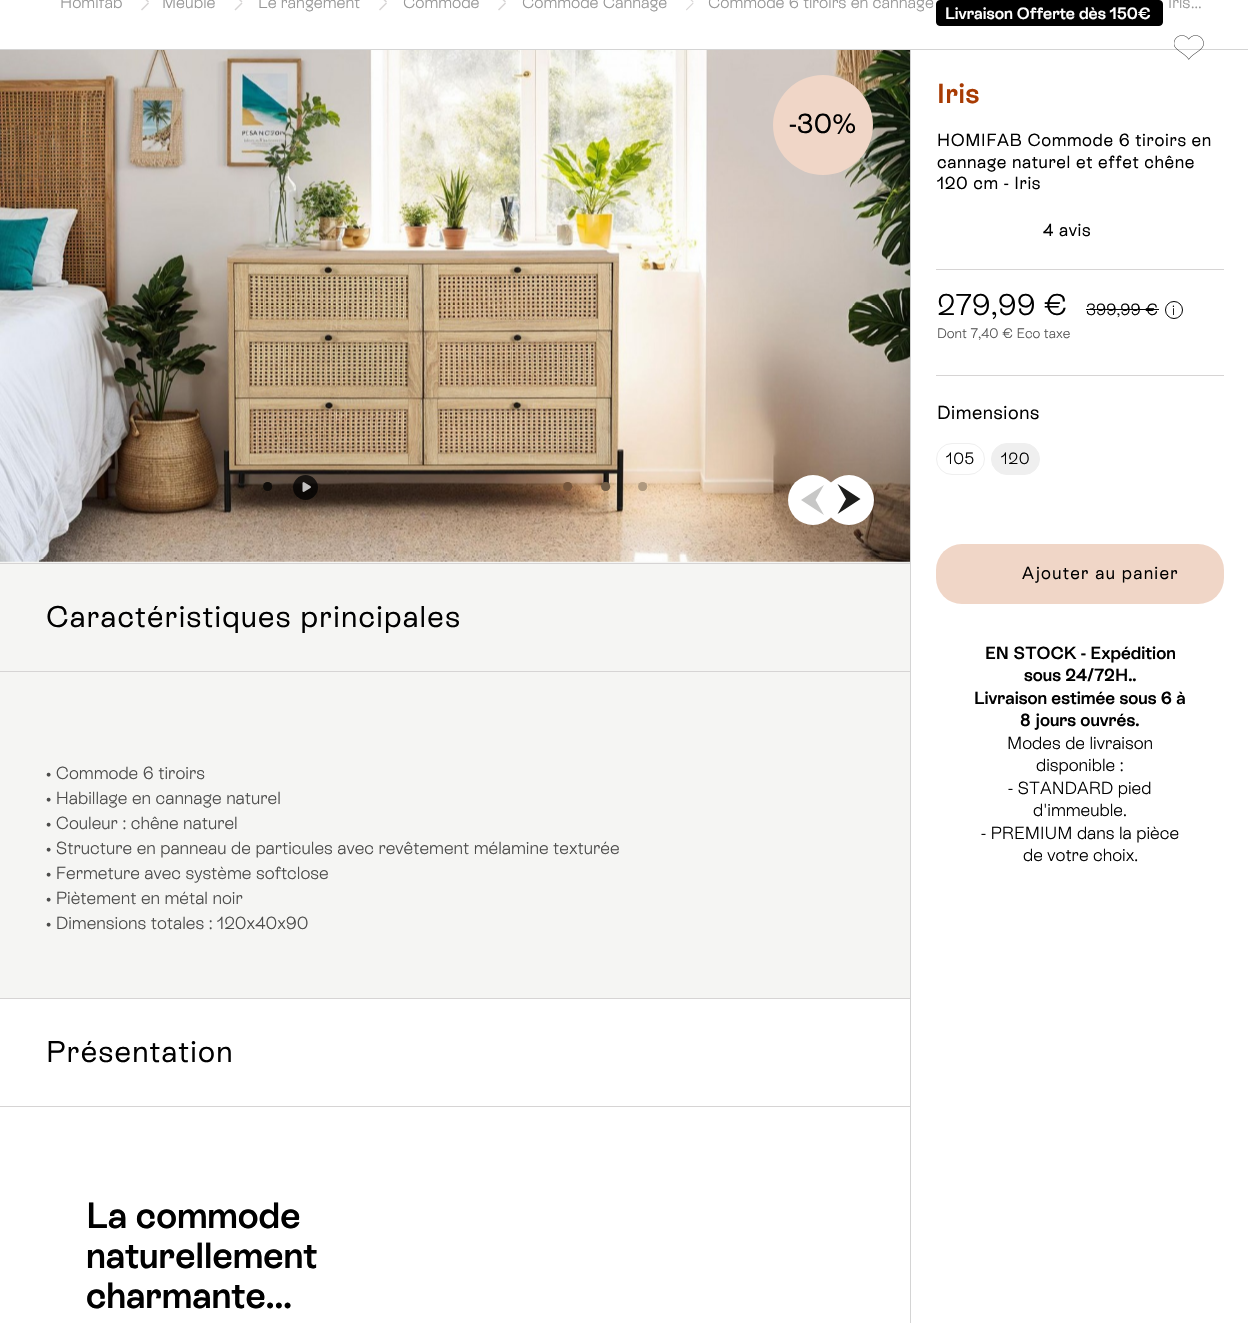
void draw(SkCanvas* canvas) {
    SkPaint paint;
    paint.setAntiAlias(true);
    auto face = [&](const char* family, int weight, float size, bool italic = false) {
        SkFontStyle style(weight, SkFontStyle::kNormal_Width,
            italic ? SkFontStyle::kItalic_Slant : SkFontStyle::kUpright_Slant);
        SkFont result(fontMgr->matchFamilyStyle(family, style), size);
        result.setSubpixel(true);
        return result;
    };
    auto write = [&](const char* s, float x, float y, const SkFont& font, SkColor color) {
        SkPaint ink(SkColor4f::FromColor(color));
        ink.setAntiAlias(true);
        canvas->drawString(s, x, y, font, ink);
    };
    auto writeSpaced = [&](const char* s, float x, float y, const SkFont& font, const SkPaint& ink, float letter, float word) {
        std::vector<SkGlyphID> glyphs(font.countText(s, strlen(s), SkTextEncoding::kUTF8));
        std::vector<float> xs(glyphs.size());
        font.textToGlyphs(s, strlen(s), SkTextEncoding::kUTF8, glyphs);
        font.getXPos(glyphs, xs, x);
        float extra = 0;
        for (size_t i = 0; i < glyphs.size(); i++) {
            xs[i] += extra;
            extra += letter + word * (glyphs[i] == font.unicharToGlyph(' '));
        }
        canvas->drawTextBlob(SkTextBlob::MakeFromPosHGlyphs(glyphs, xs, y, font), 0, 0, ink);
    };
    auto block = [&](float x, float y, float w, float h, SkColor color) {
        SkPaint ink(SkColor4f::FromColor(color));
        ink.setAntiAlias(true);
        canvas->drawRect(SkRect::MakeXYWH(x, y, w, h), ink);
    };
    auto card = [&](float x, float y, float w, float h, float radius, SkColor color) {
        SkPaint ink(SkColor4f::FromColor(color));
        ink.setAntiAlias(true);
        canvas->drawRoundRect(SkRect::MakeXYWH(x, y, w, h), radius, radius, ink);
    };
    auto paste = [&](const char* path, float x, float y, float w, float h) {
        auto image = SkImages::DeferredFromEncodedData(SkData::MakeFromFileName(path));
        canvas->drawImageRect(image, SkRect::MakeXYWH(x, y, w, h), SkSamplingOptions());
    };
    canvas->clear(SK_ColorWHITE);
    block(0, 49, 1248, 1, SkColorSetRGB(212, 212, 212));
    auto kFont1 = face("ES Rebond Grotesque", 300, 16.25f);
    write("Homifab", 60, 8, kFont1, SkColorSetRGB(150, 150, 150));
    paint.setColor(SkColorSetRGB(214, 212, 212));
    canvas->drawPath(SkPathBuilder().moveTo(142, -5.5f).lineTo(149, 1.5f).lineTo(148, 2.5f).lineTo(141, -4.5f).close().detach(), paint);
    canvas->drawPath(SkPathBuilder().moveTo(148, 2.5f).lineTo(149, 3.5f).lineTo(142, 10.5f).lineTo(141, 9.5f).close().detach(), paint);
    write("Meuble", 162, 8, kFont1, SkColorSetRGB(150, 150, 150));
    canvas->drawPath(SkPathBuilder().moveTo(235.5f, -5.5f).lineTo(242.5f, 1.5f).lineTo(241.5f, 2.5f).lineTo(234.5f, -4.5f).close().detach(), paint);
    canvas->drawPath(SkPathBuilder().moveTo(241.5f, 2.5f).lineTo(242.5f, 3.5f).lineTo(235.5f, 10.5f).lineTo(234.5f, 9.5f).close().detach(), paint);
    write("Le rangement", 258, 8, kFont1, SkColorSetRGB(150, 150, 150));
    canvas->drawPath(SkPathBuilder().moveTo(380, -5.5f).lineTo(387, 1.5f).lineTo(386, 2.5f).lineTo(379, -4.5f).close().detach(), paint);
    canvas->drawPath(SkPathBuilder().moveTo(386, 2.5f).lineTo(387, 3.5f).lineTo(380, 10.5f).lineTo(379, 9.5f).close().detach(), paint);
    write("Commode", 403, 8, kFont1, SkColorSetRGB(150, 150, 150));
    canvas->drawPath(SkPathBuilder().moveTo(499, -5.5f).lineTo(506, 1.5f).lineTo(505, 2.5f).lineTo(498, -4.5f).close().detach(), paint);
    canvas->drawPath(SkPathBuilder().moveTo(505, 2.5f).lineTo(506, 3.5f).lineTo(499, 10.5f).lineTo(498, 9.5f).close().detach(), paint);
    write("Commode Cannage", 522, 8, kFont1, SkColorSetRGB(150, 150, 150));
    canvas->drawPath(SkPathBuilder().moveTo(686.5f, -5.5f).lineTo(693.5f, 1.5f).lineTo(693, 2.5f).lineTo(686, -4.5f).close().detach(), paint);
    canvas->drawPath(SkPathBuilder().moveTo(693, 2.5f).lineTo(693.5f, 3.5f).lineTo(686.5f, 10.5f).lineTo(686, 9.5f).close().detach(), paint);
    block(910, 50, 1, 1273, SkColorSetRGB(212, 212, 212));
    block(0, 561, 910, 2, SkColorSetRGB(245, 245, 243));
    paste("pic1.png", 0, 50, 910, 512);
    block(0, 564, 910, 434, SkColorSetRGB(245, 245, 243));
    canvas->save();
    canvas->clipRect(SkRect::MakeXYWH(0, 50, 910, 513));
    paint.setColor(SkColorSetARGB(43, 0, 0, 0));
    paint.setMaskFilter(SkMaskFilter::MakeBlur(kNormal_SkBlurStyle, 15.5f));
    canvas->drawRect(SkRect::MakeXYWH(913, 53, 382, 510), paint);
    paint.setMaskFilter(nullptr);
    canvas->restore();
    write("Commode 6 tiroirs en cannage", 708, 8, kFont1, SkColorSetRGB(150, 150, 150));
    write("Iris…", 1168, 8, kFont1, SkColorSetRGB(150, 150, 150));
    paint.setColor(SkColorSetRGB(240, 214, 199));
    canvas->drawCircle(823, 125, 50, paint);
    auto kFont2 = face("ES Rebond Grotesque", 400, 27.5f);
    write("-30%", 789, 133, kFont2, SK_ColorBLACK);
    auto kFont3 = face("Liberation Serif", 400, 38);
    write("•", 261, 499, kFont3, SkColorSetRGB(15, 12, 9));
    paint.setColor(SkColorSetARGB(191, 0, 0, 0));
    canvas->drawCircle(305.5f, 487.5f, 12.5f, paint);
    paste("pic2.png", 302, 482, 9, 10);
    write("•", 561, 499, kFont3, SkColorSetRGB(116, 84, 58));
    write("•", 599, 499, kFont3, SkColorSetRGB(113, 93, 70));
    write("•", 636, 499, kFont3, SkColorSetRGB(175, 153, 127));
    paint.setColor(SK_ColorWHITE);
    canvas->drawCircle(813, 500, 25, paint);
    paint.setColor(SkColorSetRGB(199, 199, 198));
    canvas->drawPath(SkPathBuilder().moveTo(824, 485).lineTo(801, 500).lineTo(824, 515).lineTo(815.5f, 500).close().detach(), paint);
    paint.setColor(SK_ColorWHITE);
    canvas->drawCircle(849, 500, 25, paint);
    paint.setColor(SkColorSetRGB(29, 29, 27));
    canvas->drawPath(SkPathBuilder().moveTo(837.5f, 514).lineTo(860.5f, 499).lineTo(837.5f, 484).lineTo(846, 499).close().detach(), paint);
    block(0, 563, 910, 1, SkColorSetRGB(214, 212, 212));
    block(0, 671, 910, 1, SkColorSetRGB(214, 212, 212));
    auto kFont4 = face("ES Rebond Grotesque", 400, 30);
    paint.setColor(SK_ColorBLACK);
    writeSpaced("Caractéristiques principales", 46, 627, kFont4, paint, 1.25f, 0);
    auto kFont5 = face("ES Rebond Grotesque", 300, 17.5f);
    write("• Commode 6 tiroirs", 46, 779, kFont5, SkColorSetRGB(76, 76, 75));
    write("• Habillage en cannage naturel", 46, 804, kFont5, SkColorSetRGB(76, 76, 75));
    write("• Couleur : chêne naturel", 46, 829, kFont5, SkColorSetRGB(76, 76, 75));
    write("• Structure en panneau de particules avec revêtement mélamine texturée", 46, 854, kFont5, SkColorSetRGB(76, 76, 75));
    write("• Fermeture avec système softclose", 46, 879, kFont5, SkColorSetRGB(76, 76, 75));
    write("• Piètement en métal noir", 46, 904, kFont5, SkColorSetRGB(76, 76, 75));
    write("• Dimensions totales : 120x40x90", 46, 929, kFont5, SkColorSetRGB(76, 76, 75));
    block(0, 998, 910, 1, SkColorSetRGB(214, 212, 212));
    block(0, 1106, 910, 1, SkColorSetRGB(214, 212, 212));
    writeSpaced("Présentation", 46, 1062, kFont4, paint, 1.25f, 0);
    auto kFont6 = face("ES Rebond Grotesque", 600, 36.25f);
    write("La commode", 86, 1228, kFont6, SK_ColorBLACK);
    write("naturellement", 86, 1268, kFont6, SK_ColorBLACK);
    write("charmante...", 86, 1308, kFont6, SK_ColorBLACK);
    canvas->drawRoundRect(SkRect::MakeXYWH(936.5f, 0.5f, 226, 25), 3.5f, 3.5f, paint);
    paint.setStyle(SkPaint::kStroke_Style);
    paint.setStrokeWidth(1);
    canvas->drawRoundRect(SkRect::MakeXYWH(936.5f, 0.5f, 226, 25), 3.5f, 3.5f, paint);
    auto kFont7 = face("ES Rebond Grotesque", 600, 16.25f);
    write("Livraison Offerte dès 150€", 945, 19, kFont7, SK_ColorWHITE);
    auto kFont8 = face("ES Rebond Grotesque", 600, 27.5f);
    paint.setStyle(SkPaint::kFill_Style);
    paint.setColor(SkColorSetRGB(168, 59, 3));
    writeSpaced("Iris", 937, 103, kFont8, paint, 0.6f, 0);
    auto kFont9 = face("ES Rebond Grotesque", 400, 17.5f);
    paint.setColor(SK_ColorBLACK);
    writeSpaced("HOMIFAB Commode 6 tiroirs en", 937, 146, kFont9, paint, 0.6f, 0);
    writeSpaced("cannage naturel et effet chêne", 937, 168, kFont9, paint, 0.6f, 0);
    writeSpaced("120 cm - Iris", 937, 189, kFont9, paint, 0.6f, 0);
    writeSpaced("4 avis", 1043, 236, kFont9, paint, 0.6f, 0);
    block(936, 269, 288, 1, SkColorSetRGB(214, 212, 212));
    block(936, 375, 288, 1, SkColorSetRGB(214, 212, 212));
    auto kFont10 = face("ES Rebond Grotesque", 300, 30);
    write("279,99 €", 937, 315, kFont10, SK_ColorBLACK);
    write("399,99 €", 1086, 315, kFont1, SK_ColorBLACK);
    block(1086, 309, 73, 1, SK_ColorBLACK);
    paint.setStyle(SkPaint::kStroke_Style);
    canvas->drawCircle(1174, 310, 8.5f, paint);
    auto kFont11 = face("ES Rebond Grotesque", 300, 13.75f);
    write("i", 1172, 315, kFont11, SK_ColorBLACK);
    write("Dont 7,40 € Eco taxe", 937, 338, kFont11, SkColorSetRGB(86, 86, 86));
    auto kFont12 = face("ES Rebond Grotesque", 400, 18.75f);
    paint.setStyle(SkPaint::kFill_Style);
    writeSpaced("Dimensions", 937, 419, kFont12, paint, 0.6f, 0);
    paint.setStyle(SkPaint::kStroke_Style);
    paint.setColor(SkColorSetRGB(239, 239, 239));
    canvas->drawRoundRect(SkRect::MakeXYWH(936.5f, 443.5f, 48, 31), 15.5f, 15.5f, paint);
    paint.setStyle(SkPaint::kFill_Style);
    paint.setColor(SK_ColorBLACK);
    writeSpaced("105", 946, 464, kFont1, paint, 0.6f, 0);
    paint.setColor(SkColorSetRGB(239, 239, 239));
    canvas->drawRoundRect(SkRect::MakeXYWH(991.5f, 443.5f, 48, 31), 15.5f, 15.5f, paint);
    paint.setStyle(SkPaint::kStroke_Style);
    canvas->drawRoundRect(SkRect::MakeXYWH(991.5f, 443.5f, 48, 31), 15.5f, 15.5f, paint);
    paint.setStyle(SkPaint::kFill_Style);
    paint.setColor(SK_ColorBLACK);
    writeSpaced("120", 1001, 464, kFont1, paint, 0.6f, 0);
    paste("pic3.png", 1174, 35, 30, 25);
    card(936, 544, 288, 60, 26, SkColorSetRGB(240, 214, 199));
    writeSpaced("Ajouter au panier", 1022, 579, kFont9, paint, 1.25f, 0);
    auto kFont13 = face("ES Rebond Grotesque", 600, 17.5f);
    write("EN STOCK - Expédition", 985, 659, kFont13, SK_ColorBLACK);
    write("sous 24/72H..", 1024, 681, kFont13, SK_ColorBLACK);
    write("Livraison estimée sous 6 à", 974, 704, kFont13, SK_ColorBLACK);
    write("8 jours ouvrés.", 1020, 726, kFont13, SK_ColorBLACK);
    write("Modes de livraison", 1007, 749, kFont5, SK_ColorBLACK);
    write("disponible :", 1036, 771, kFont5, SK_ColorBLACK);
    write("- STANDARD pied", 1008, 794, kFont5, SK_ColorBLACK);
    write("d'immeuble.", 1033, 816, kFont5, SK_ColorBLACK);
    write("- PREMIUM dans la pièce", 981, 839, kFont5, SK_ColorBLACK);
    write("de votre choix.", 1023, 861, kFont5, SK_ColorBLACK);
}
